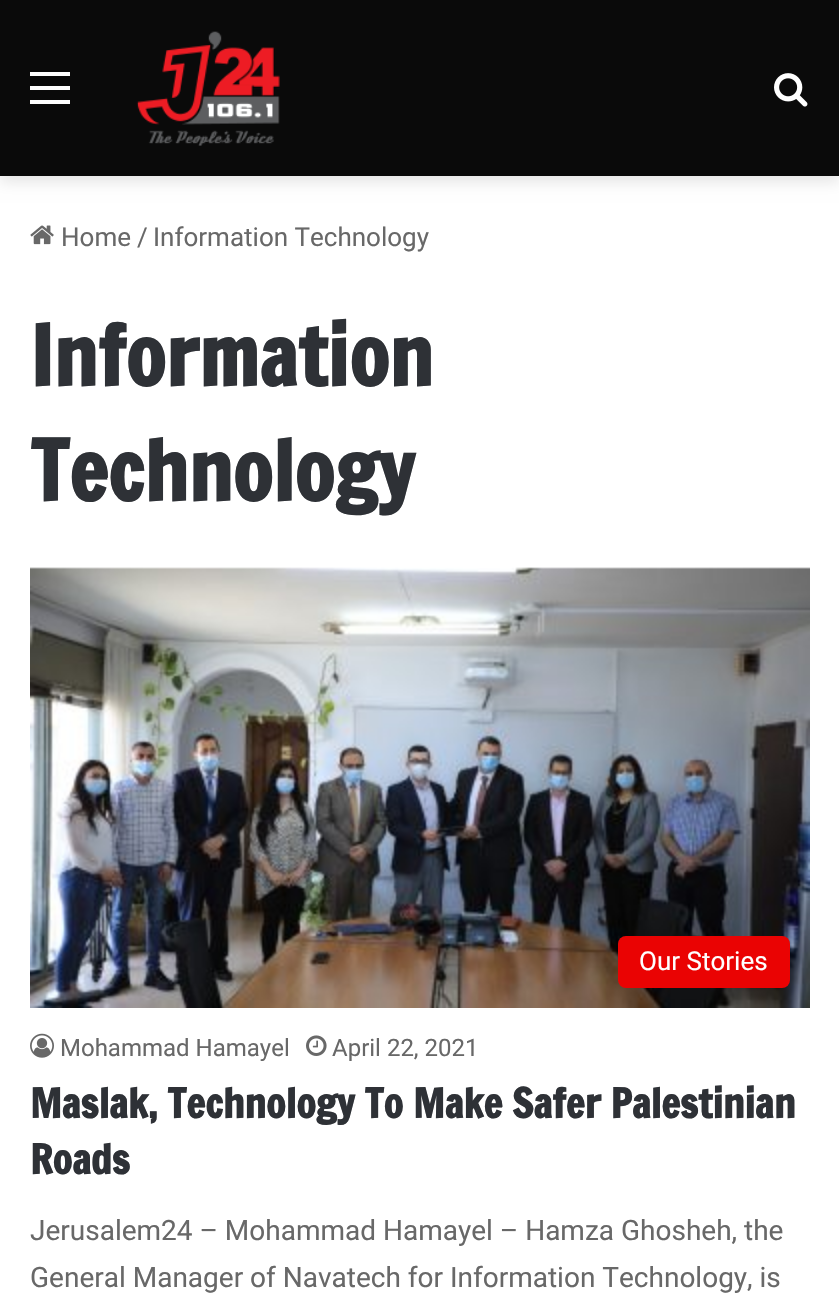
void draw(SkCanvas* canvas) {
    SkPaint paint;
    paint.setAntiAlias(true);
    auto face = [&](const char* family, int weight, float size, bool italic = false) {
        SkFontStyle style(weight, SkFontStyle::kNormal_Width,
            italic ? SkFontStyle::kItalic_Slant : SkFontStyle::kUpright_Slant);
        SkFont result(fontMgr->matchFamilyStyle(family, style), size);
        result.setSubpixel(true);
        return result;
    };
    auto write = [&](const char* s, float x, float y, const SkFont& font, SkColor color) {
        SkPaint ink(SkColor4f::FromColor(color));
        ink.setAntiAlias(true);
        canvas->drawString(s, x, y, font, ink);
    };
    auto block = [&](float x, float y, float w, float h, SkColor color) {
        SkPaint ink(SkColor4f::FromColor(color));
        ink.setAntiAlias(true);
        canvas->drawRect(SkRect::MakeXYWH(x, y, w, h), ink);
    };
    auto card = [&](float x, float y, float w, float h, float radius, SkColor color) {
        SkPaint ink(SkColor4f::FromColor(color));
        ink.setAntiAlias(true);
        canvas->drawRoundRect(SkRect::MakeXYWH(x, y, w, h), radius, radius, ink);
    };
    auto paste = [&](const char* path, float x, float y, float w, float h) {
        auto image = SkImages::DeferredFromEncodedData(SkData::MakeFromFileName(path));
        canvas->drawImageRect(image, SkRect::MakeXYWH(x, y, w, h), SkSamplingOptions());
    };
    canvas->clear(SK_ColorWHITE);
    paint.setColor(SkColorSetARGB(26, 0, 0, 0));
    paint.setMaskFilter(SkMaskFilter::MakeBlur(kNormal_SkBlurStyle, 7));
    canvas->drawRect(SkRect::MakeXYWH(0, 6, 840, 176), paint);
    paint.setMaskFilter(nullptr);
    block(0, 0, 839, 176, SkColorSetRGB(10, 10, 10));
    block(30, 86, 40, 4, SK_ColorWHITE);
    block(30, 72, 40, 4, SK_ColorWHITE);
    block(30, 100, 40, 4, SK_ColorWHITE);
    paste("pic1.png", 136, 31, 144, 115);
    paste("pic2.png", 774, 73, 34, 34);
    paste("pic3.png", 30, 225, 24, 20);
    auto kFont1 = face("Roboto", 400, 26);
    write("Home", 61, 246, kFont1, SkColorSetRGB(104, 104, 104));
    write("/", 137, 246, kFont1, SkColorSetRGB(104, 104, 104));
    write("Information Technology", 153, 246, kFont1, SkColorSetRGB(104, 104, 104));
    auto kFont2 = face("Francois One", 700, 82);
    write("Information", 30, 386, kFont2, SkColorSetRGB(46, 49, 54));
    write("Technology", 30, 501, kFont2, SkColorSetRGB(46, 49, 54));
    paste("pic4.png", 30, 567, 780, 441);
    card(618, 936, 172, 52, 8, SkColorSetRGB(234, 3, 3));
    write("Our Stories", 639, 970, kFont1, SK_ColorWHITE);
    paste("pic5.png", 30, 1033, 24, 25);
    auto kFont3 = face("Roboto", 400, 24);
    write("Mohammad Hamayel", 60, 1056, kFont3, SkColorSetRGB(104, 104, 104));
    paste("pic6.png", 306, 1035, 21, 21);
    write("April 22, 2021", 332, 1056, kFont3, SkColorSetRGB(104, 104, 104));
    auto kFont4 = face("Francois One", 700, 40);
    write("Maslak, Technology To Make Safer Palestinian", 30, 1118, kFont4, SkColorSetRGB(46, 49, 54));
    write("Roads", 30, 1174, kFont4, SkColorSetRGB(46, 49, 54));
    auto kFont5 = face("Roboto", 400, 28);
    write("Jerusalem24 – Mohammad Hamayel – Hamza Ghosheh, the", 30, 1240, kFont5, SkColorSetRGB(104, 104, 104));
    write("General Manager of Navatech for Information Technology, is", 30, 1287, kFont5, SkColorSetRGB(104, 104, 104));
}
